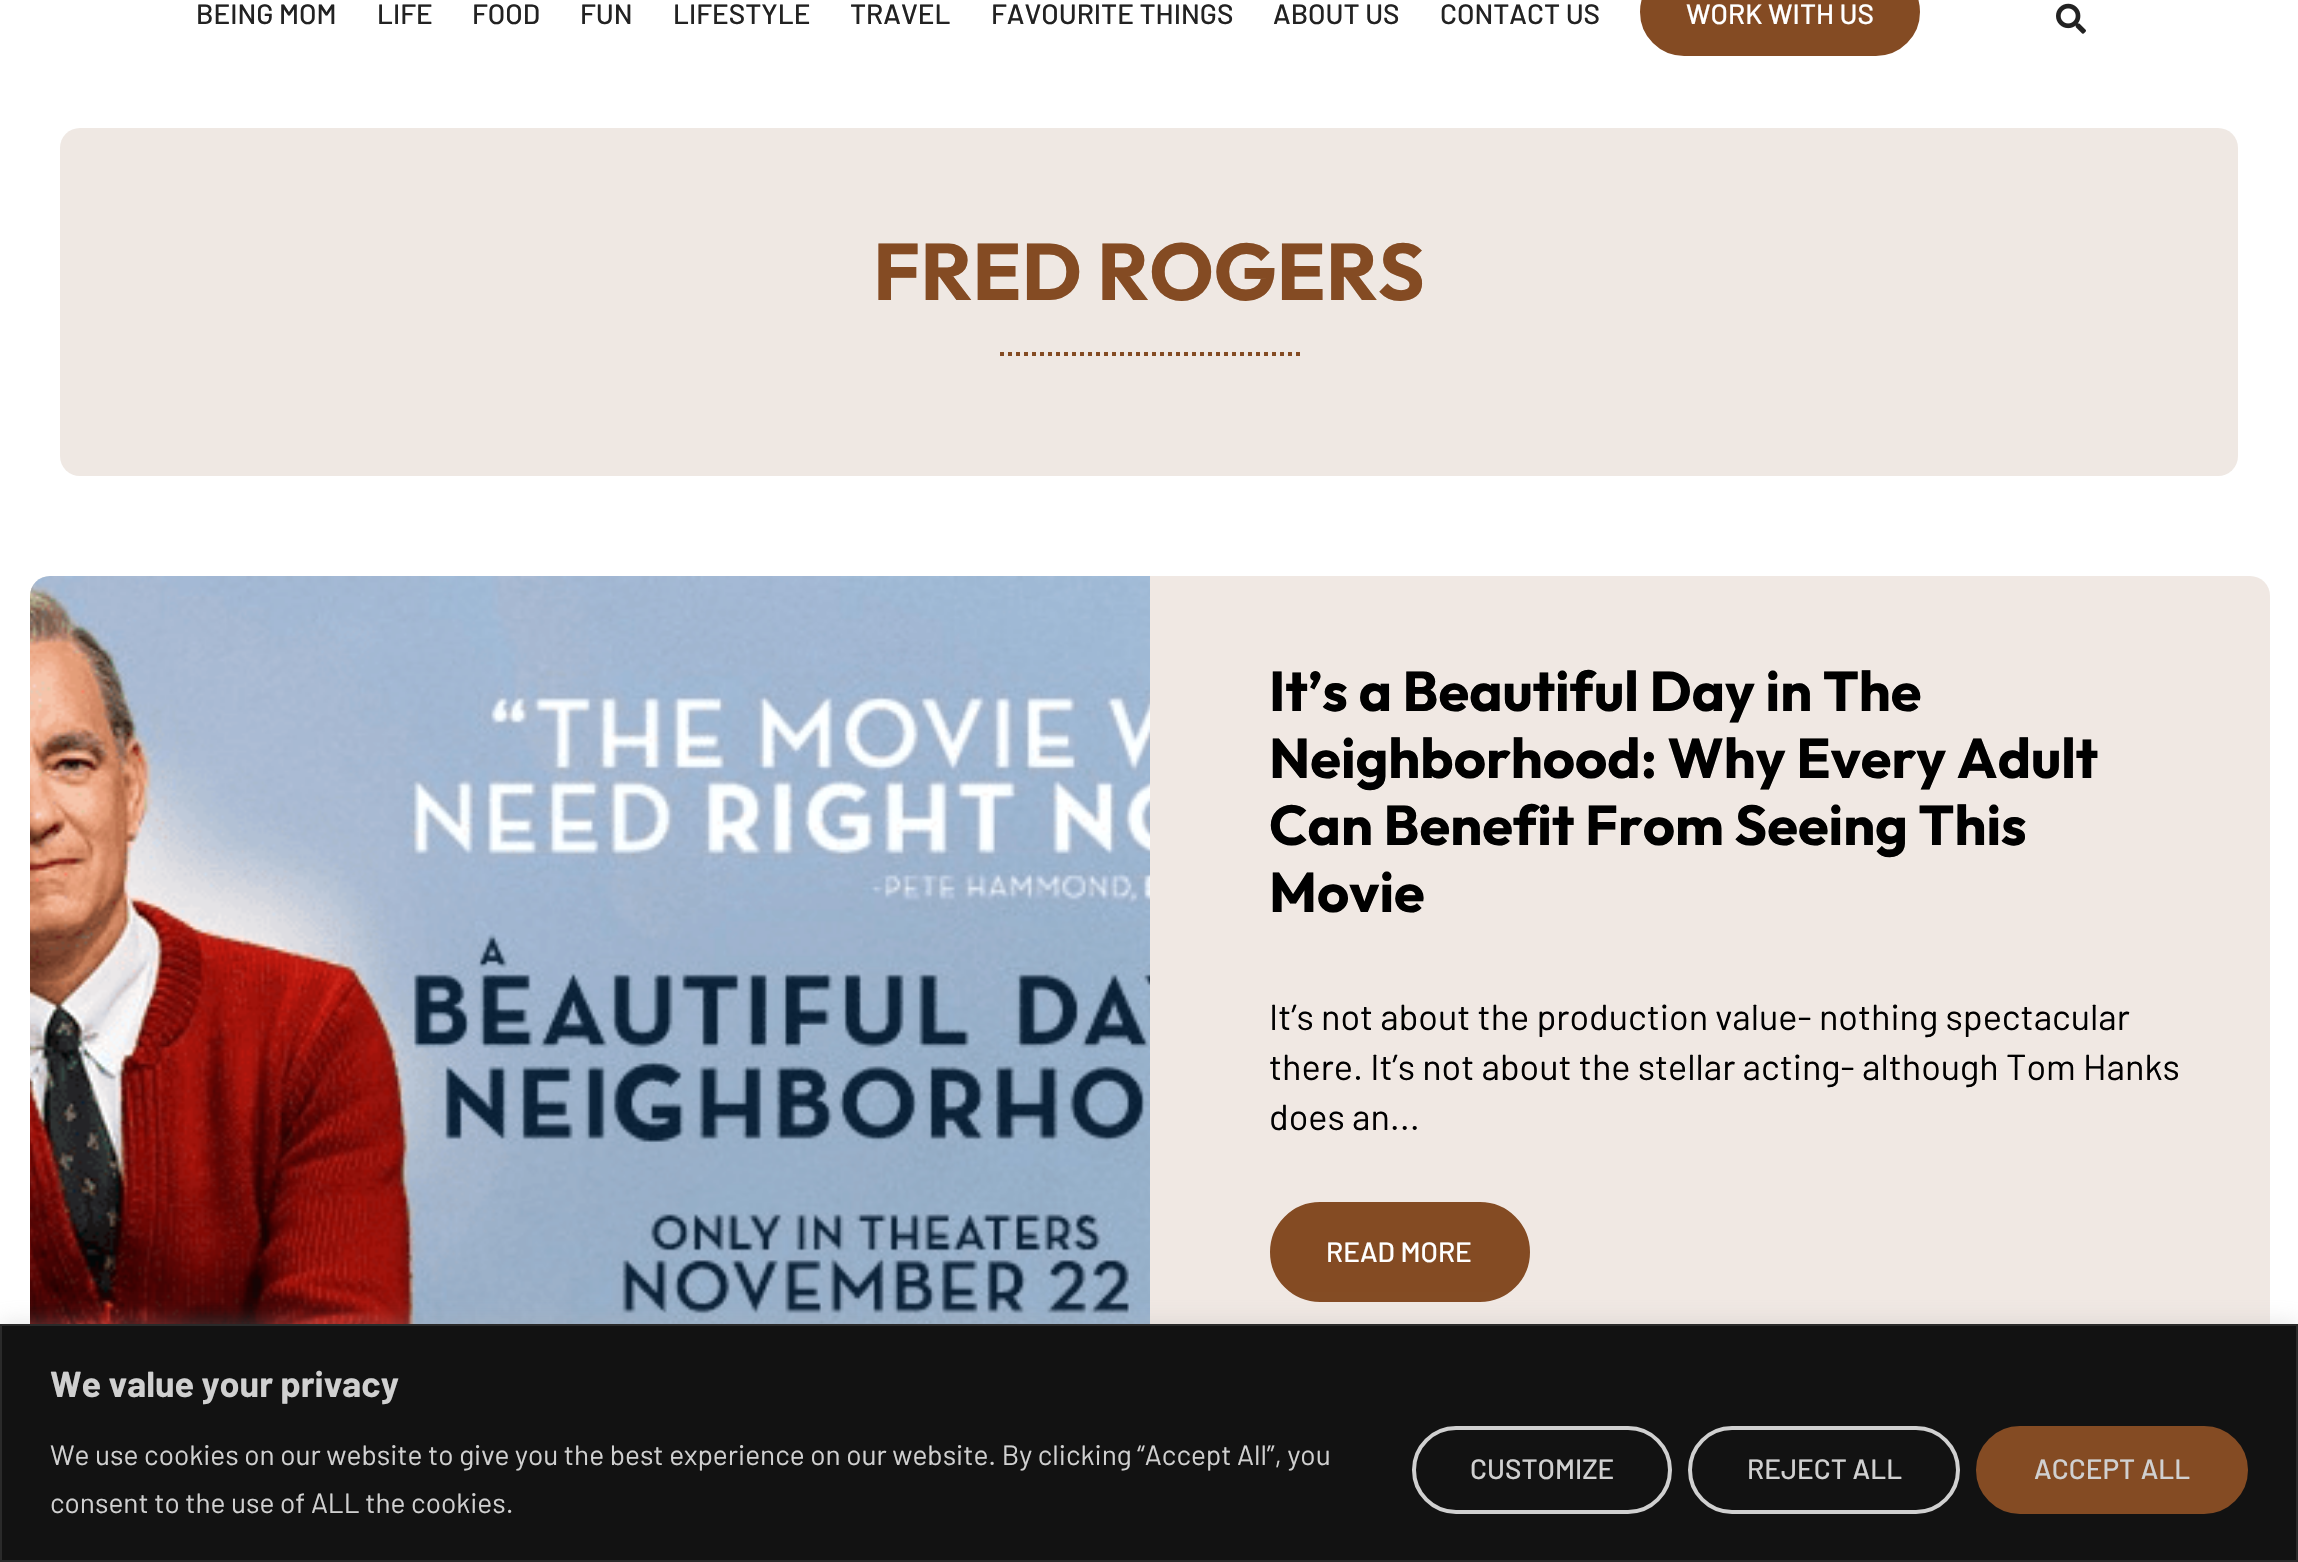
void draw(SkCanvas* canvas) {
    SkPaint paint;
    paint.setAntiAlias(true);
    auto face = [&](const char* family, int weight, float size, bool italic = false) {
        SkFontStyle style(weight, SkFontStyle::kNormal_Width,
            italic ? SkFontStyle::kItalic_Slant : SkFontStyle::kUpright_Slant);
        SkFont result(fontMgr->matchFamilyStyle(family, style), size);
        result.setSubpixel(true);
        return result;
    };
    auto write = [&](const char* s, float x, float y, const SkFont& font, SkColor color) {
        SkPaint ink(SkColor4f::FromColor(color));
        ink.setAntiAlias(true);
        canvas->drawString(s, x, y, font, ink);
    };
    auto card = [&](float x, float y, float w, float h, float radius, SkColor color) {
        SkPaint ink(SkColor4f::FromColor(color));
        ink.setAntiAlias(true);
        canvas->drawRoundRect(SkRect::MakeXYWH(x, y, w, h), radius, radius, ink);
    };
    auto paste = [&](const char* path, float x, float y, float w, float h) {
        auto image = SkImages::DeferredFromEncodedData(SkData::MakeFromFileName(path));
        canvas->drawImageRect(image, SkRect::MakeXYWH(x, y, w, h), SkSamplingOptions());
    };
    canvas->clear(SK_ColorWHITE);
    auto kFont1 = face("Barlow", 500, 28);
    write("BEING MOM", 196, 24, kFont1, SkColorSetRGB(34, 34, 34));
    write("LIFE", 377, 24, kFont1, SkColorSetRGB(34, 34, 34));
    write("FOOD", 472, 24, kFont1, SkColorSetRGB(34, 34, 34));
    write("FUN", 580, 24, kFont1, SkColorSetRGB(34, 34, 34));
    write("LIFESTYLE", 673, 24, kFont1, SkColorSetRGB(34, 34, 34));
    write("TRAVEL", 850, 24, kFont1, SkColorSetRGB(34, 34, 34));
    write("FAVOURITE THINGS", 991, 24, kFont1, SkColorSetRGB(34, 34, 34));
    write("ABOUT US", 1273, 24, kFont1, SkColorSetRGB(34, 34, 34));
    write("CONTACT US", 1440, 24, kFont1, SkColorSetRGB(34, 34, 34));
    paint.setColor(SkColorSetRGB(132, 75, 35));
    canvas->drawRoundRect(SkRect::MakeXYWH(1641, -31, 278, 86), 43, 43, paint);
    paint.setStyle(SkPaint::kStroke_Style);
    paint.setStrokeWidth(2);
    canvas->drawRoundRect(SkRect::MakeXYWH(1641, -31, 278, 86), 43, 43, paint);
    write("WORK WITH US", 1686, 24, kFont1, SK_ColorWHITE);
    paste("pic1.png", 2056, 3, 30, 31);
    card(60, 128, 2178, 348, 20, SkColorSetRGB(239, 232, 227));
    auto kFont2 = face("Outfit", 700, 80);
    write("FRED ROGERS", 873, 300, kFont2, SkColorSetRGB(132, 75, 35));
    paint.setStrokeWidth(4);
    paint.setPathEffect(SkDashPathEffect::Make({{4, 4}}, 0));
    canvas->drawPath(SkPathBuilder().moveTo(1000, 354).lineTo(1300, 354).detach(), paint);
    paint.setPathEffect(nullptr);
    card(30, 576, 2240, 896, 20, SkColorSetRGB(240, 232, 227));
    paste("pic2.png", 30, 576, 1120, 748);
    auto kFont3 = face("Outfit", 700, 56);
    write("It’s a Beautiful Day in The", 1269, 711, kFont3, SK_ColorBLACK);
    write("Neighborhood: Why Every Adult", 1269, 778, kFont3, SK_ColorBLACK);
    write("Can Benefit From Seeing This", 1269, 845, kFont3, SK_ColorBLACK);
    write("Movie", 1269, 912, kFont3, SK_ColorBLACK);
    auto kFont4 = face("Barlow", 400, 36);
    write("It’s not about the production value- nothing spectacular", 1269, 1030, kFont4, SK_ColorBLACK);
    write("there. It’s not about the stellar acting- although Tom Hanks", 1269, 1080, kFont4, SK_ColorBLACK);
    write("does an...", 1269, 1130, kFont4, SK_ColorBLACK);
    paint.setStyle(SkPaint::kFill_Style);
    canvas->drawRoundRect(SkRect::MakeXYWH(1271, 1203, 258, 98), 49, 49, paint);
    paint.setStyle(SkPaint::kStroke_Style);
    paint.setStrokeWidth(2);
    canvas->drawRoundRect(SkRect::MakeXYWH(1271, 1203, 258, 98), 49, 49, paint);
    write("READ MORE", 1326, 1262, kFont1, SK_ColorWHITE);
    paint.setStyle(SkPaint::kFill_Style);
    paint.setColor(SkColorSetARGB(77, 172, 171, 171));
    paint.setMaskFilter(SkMaskFilter::MakeBlur(kNormal_SkBlurStyle, 10));
    canvas->drawRect(SkRect::MakeXYWH(0, 1322, 2298, 238), paint);
    paint.setMaskFilter(nullptr);
    paint.setColor(SkColorSetRGB(18, 18, 18));
    canvas->drawRect(SkRect::MakeXYWH(1, 1325, 2296, 236), paint);
    paint.setStyle(SkPaint::kStroke_Style);
    paint.setColor(SkColorSetRGB(42, 42, 42));
    canvas->drawRect(SkRect::MakeXYWH(1, 1325, 2296, 236), paint);
    auto kFont5 = face("Barlow", 700, 36);
    write("We value your privacy", 50, 1397, kFont5, SkColorSetRGB(208, 208, 208));
    auto kFont6 = face("Barlow", 400, 28);
    write("We use cookies on our website to give you the best experience on our website. By clicking “Accept All”, you", 50, 1465, kFont6, SkColorSetRGB(208, 208, 208));
    write("consent to the use of ALL the cookies.", 50, 1513, kFont6, SkColorSetRGB(208, 208, 208));
    paint.setStrokeWidth(4);
    paint.setColor(SkColorSetRGB(208, 208, 208));
    canvas->drawRoundRect(SkRect::MakeXYWH(1414, 1428, 256, 84), 42, 42, paint);
    write("CUSTOMIZE", 1470, 1479, kFont1, SkColorSetRGB(208, 208, 208));
    canvas->drawRoundRect(SkRect::MakeXYWH(1690, 1428, 268, 84), 42, 42, paint);
    write("REJECT ALL", 1747, 1479, kFont1, SkColorSetRGB(208, 208, 208));
    paint.setStyle(SkPaint::kFill_Style);
    paint.setColor(SkColorSetRGB(132, 75, 35));
    canvas->drawRoundRect(SkRect::MakeXYWH(1978, 1428, 268, 84), 42, 42, paint);
    paint.setStyle(SkPaint::kStroke_Style);
    canvas->drawRoundRect(SkRect::MakeXYWH(1978, 1428, 268, 84), 42, 42, paint);
    write("ACCEPT ALL", 2034, 1479, kFont1, SkColorSetRGB(208, 208, 208));
}
